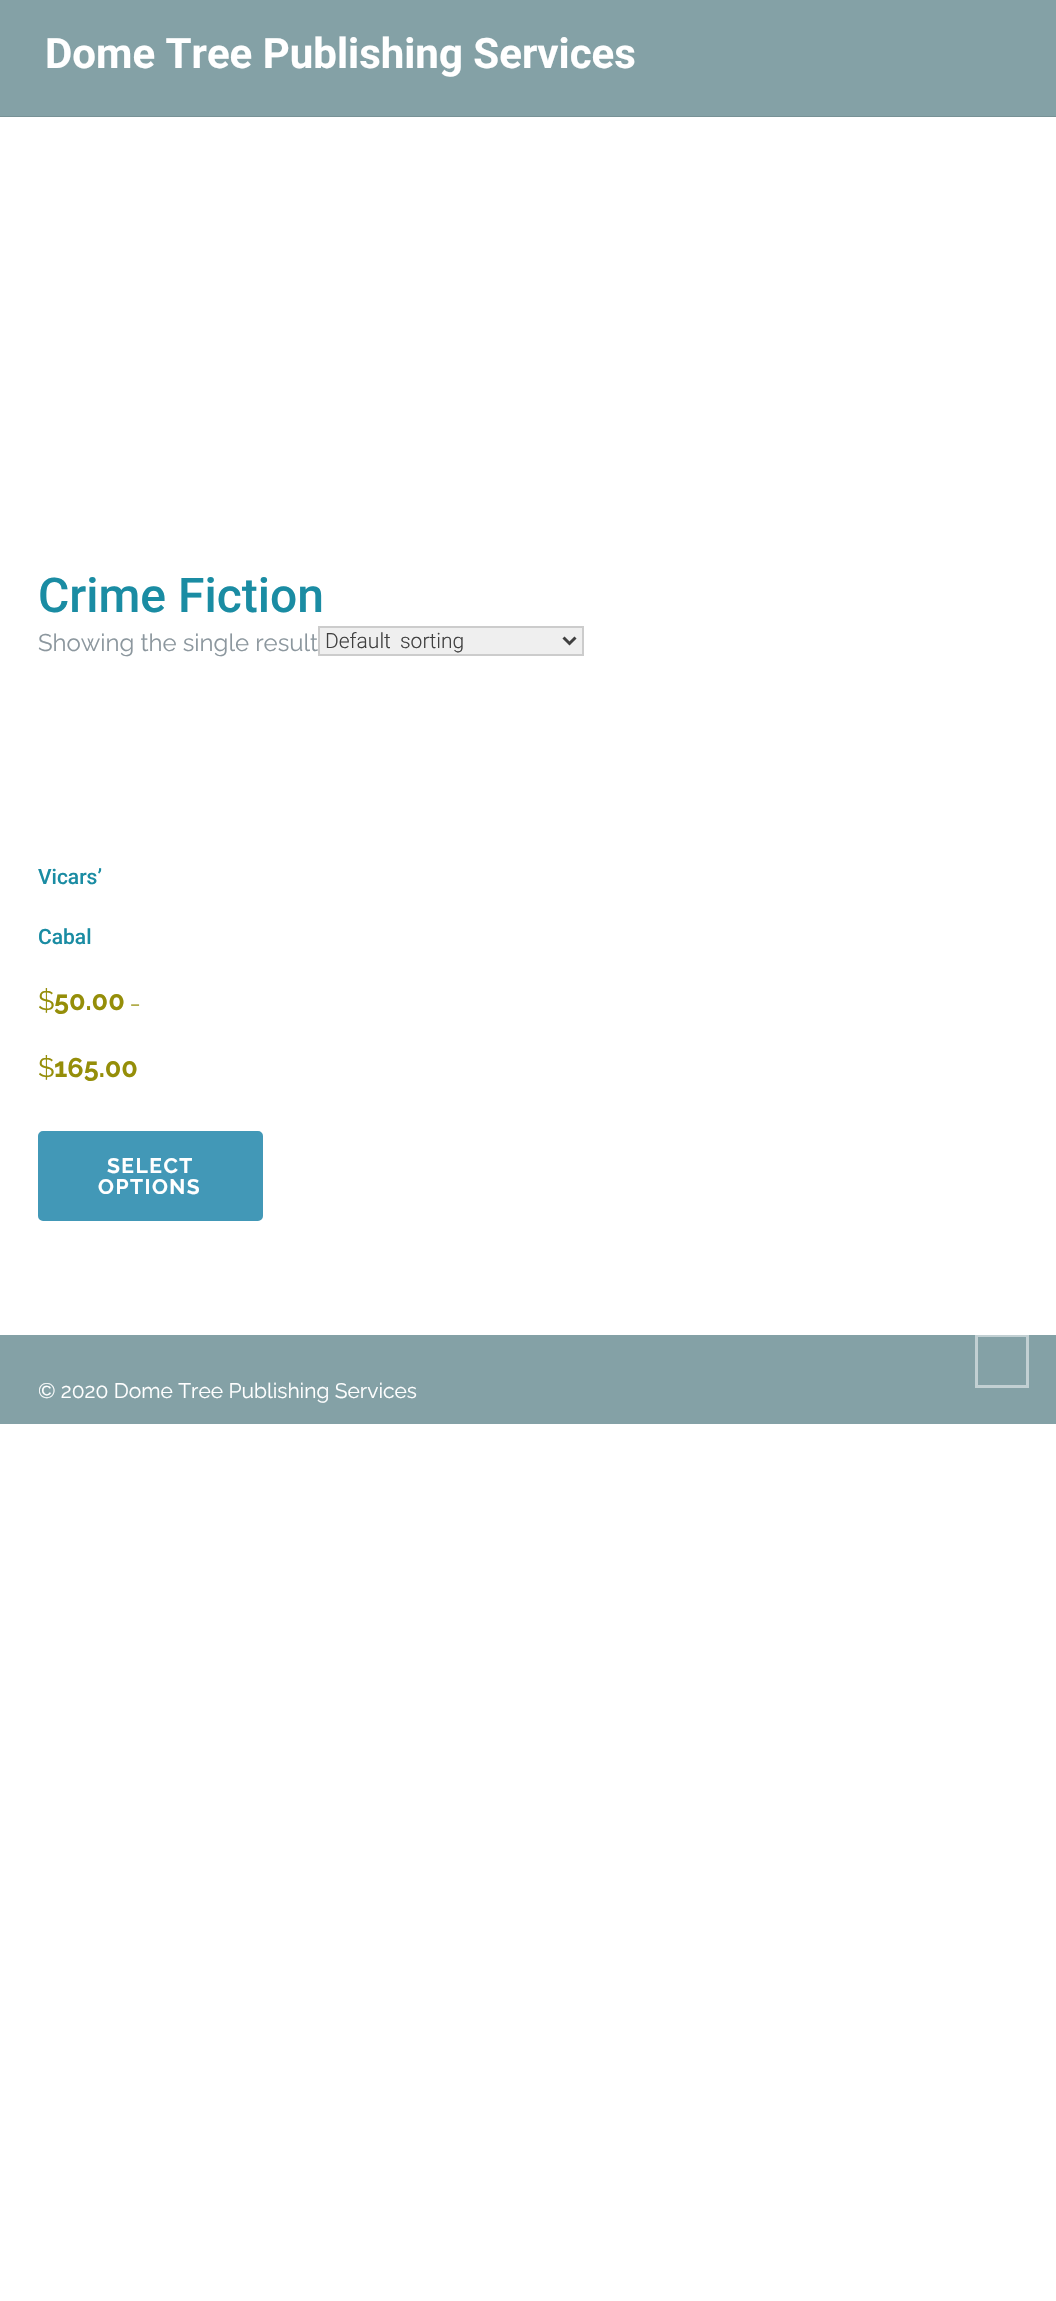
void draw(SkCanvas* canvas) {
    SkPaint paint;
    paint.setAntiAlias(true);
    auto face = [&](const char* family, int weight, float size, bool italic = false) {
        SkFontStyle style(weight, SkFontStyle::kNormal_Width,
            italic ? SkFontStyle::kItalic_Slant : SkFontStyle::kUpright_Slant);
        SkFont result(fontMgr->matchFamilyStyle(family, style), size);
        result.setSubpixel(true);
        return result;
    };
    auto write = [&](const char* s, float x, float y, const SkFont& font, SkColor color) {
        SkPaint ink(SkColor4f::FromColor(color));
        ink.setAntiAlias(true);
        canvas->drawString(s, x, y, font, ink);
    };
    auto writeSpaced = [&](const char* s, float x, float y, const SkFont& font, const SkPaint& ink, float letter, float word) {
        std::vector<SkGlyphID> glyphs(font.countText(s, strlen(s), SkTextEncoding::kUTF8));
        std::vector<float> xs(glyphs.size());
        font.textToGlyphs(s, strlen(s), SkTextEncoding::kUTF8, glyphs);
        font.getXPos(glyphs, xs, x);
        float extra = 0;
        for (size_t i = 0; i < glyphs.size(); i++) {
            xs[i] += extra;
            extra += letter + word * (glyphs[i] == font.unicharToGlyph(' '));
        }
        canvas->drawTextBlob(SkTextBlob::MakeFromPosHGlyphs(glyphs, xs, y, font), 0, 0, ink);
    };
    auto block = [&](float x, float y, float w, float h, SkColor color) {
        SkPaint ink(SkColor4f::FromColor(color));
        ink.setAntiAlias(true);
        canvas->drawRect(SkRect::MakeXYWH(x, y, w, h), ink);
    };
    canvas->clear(SK_ColorWHITE);
    block(0, 0, 1056, 116, SkColorSetRGB(132, 161, 166));
    block(0, 116, 1056, 1, SkColorSetRGB(119, 145, 149));
    auto kFont1 = face("Roboto", 700, 42);
    write("Dome Tree Publishing Services", 45, 68, kFont1, SK_ColorWHITE);
    auto kFont2 = face("Roboto", 500, 48);
    write("Crime Fiction", 38, 612, kFont2, SkColorSetRGB(26, 140, 163));
    auto kFont3 = face("Raleway", 400, 24);
    write("Showing the single result", 38, 651, kFont3, SkColorSetRGB(140, 151, 158));
    paint.setColor(SkColorSetRGB(239, 239, 239));
    canvas->drawRect(SkRect::MakeXYWH(319, 627, 264, 28), paint);
    paint.setStyle(SkPaint::kStroke_Style);
    paint.setStrokeWidth(2);
    paint.setColor(SkColorSetRGB(204, 204, 204));
    canvas->drawRect(SkRect::MakeXYWH(319, 627, 264, 28), paint);
    paint.setStrokeWidth(3);
    paint.setColor(SkColorSetRGB(64, 64, 64));
    canvas->drawPath(SkPathBuilder().moveTo(563.5f, 637.5f).lineTo(569.5f, 643.5f).lineTo(575.5f, 637.5f).detach(), paint);
    auto kFont4 = face("Roboto", 300, 21);
    paint.setStyle(SkPaint::kFill_Style);
    writeSpaced("Default sorting", 325, 648, kFont4, paint, 0, 4);
    auto kFont5 = face("Roboto", 500, 21);
    write("Vicars’", 38, 884, kFont5, SkColorSetRGB(26, 140, 163));
    write("Cabal", 38, 944, kFont5, SkColorSetRGB(26, 140, 163));
    auto kFont6 = face("Raleway", 400, 27);
    write("$", 38, 1010, kFont6, SkColorSetRGB(149, 142, 9));
    auto kFont7 = face("Raleway", 700, 27);
    write("50.00", 54, 1010, kFont7, SkColorSetRGB(149, 142, 9));
    auto kFont8 = face("Raleway", 400, 18);
    write("–", 130, 1010, kFont8, SkColorSetRGB(149, 142, 9));
    write("$", 38, 1077, kFont6, SkColorSetRGB(149, 142, 9));
    write("165.00", 54, 1077, kFont7, SkColorSetRGB(149, 142, 9));
    paint.setColor(SkColorSetRGB(66, 152, 183));
    canvas->drawRoundRect(SkRect::MakeXYWH(39.5f, 1132.5f, 222, 87), 3.5f, 3.5f, paint);
    paint.setStyle(SkPaint::kStroke_Style);
    canvas->drawRoundRect(SkRect::MakeXYWH(39.5f, 1132.5f, 222, 87), 3.5f, 3.5f, paint);
    auto kFont9 = face("Raleway", 700, 21);
    paint.setStyle(SkPaint::kFill_Style);
    paint.setColor(SK_ColorWHITE);
    writeSpaced("SELECT", 107, 1173, kFont9, paint, 1.5f, 0);
    writeSpaced("OPTIONS", 98, 1194, kFont9, paint, 1.5f, 0);
    block(0, 1335, 1056, 89, SkColorSetRGB(132, 161, 166));
    canvas->save();
    canvas->clipRect(SkRect::MakeXYWH(0, 1335, 1056, 89));
    paint.setStyle(SkPaint::kStroke_Style);
    paint.setColor(SkColorSetRGB(194, 208, 211));
    canvas->drawRect(SkRect::MakeXYWH(976.5f, 1335.5f, 51, 51), paint);
    canvas->restore();
    auto kFont10 = face("Raleway", 400, 21);
    write("© 2020 Dome Tree Publishing Services", 38, 1398, kFont10, SK_ColorWHITE);
}
